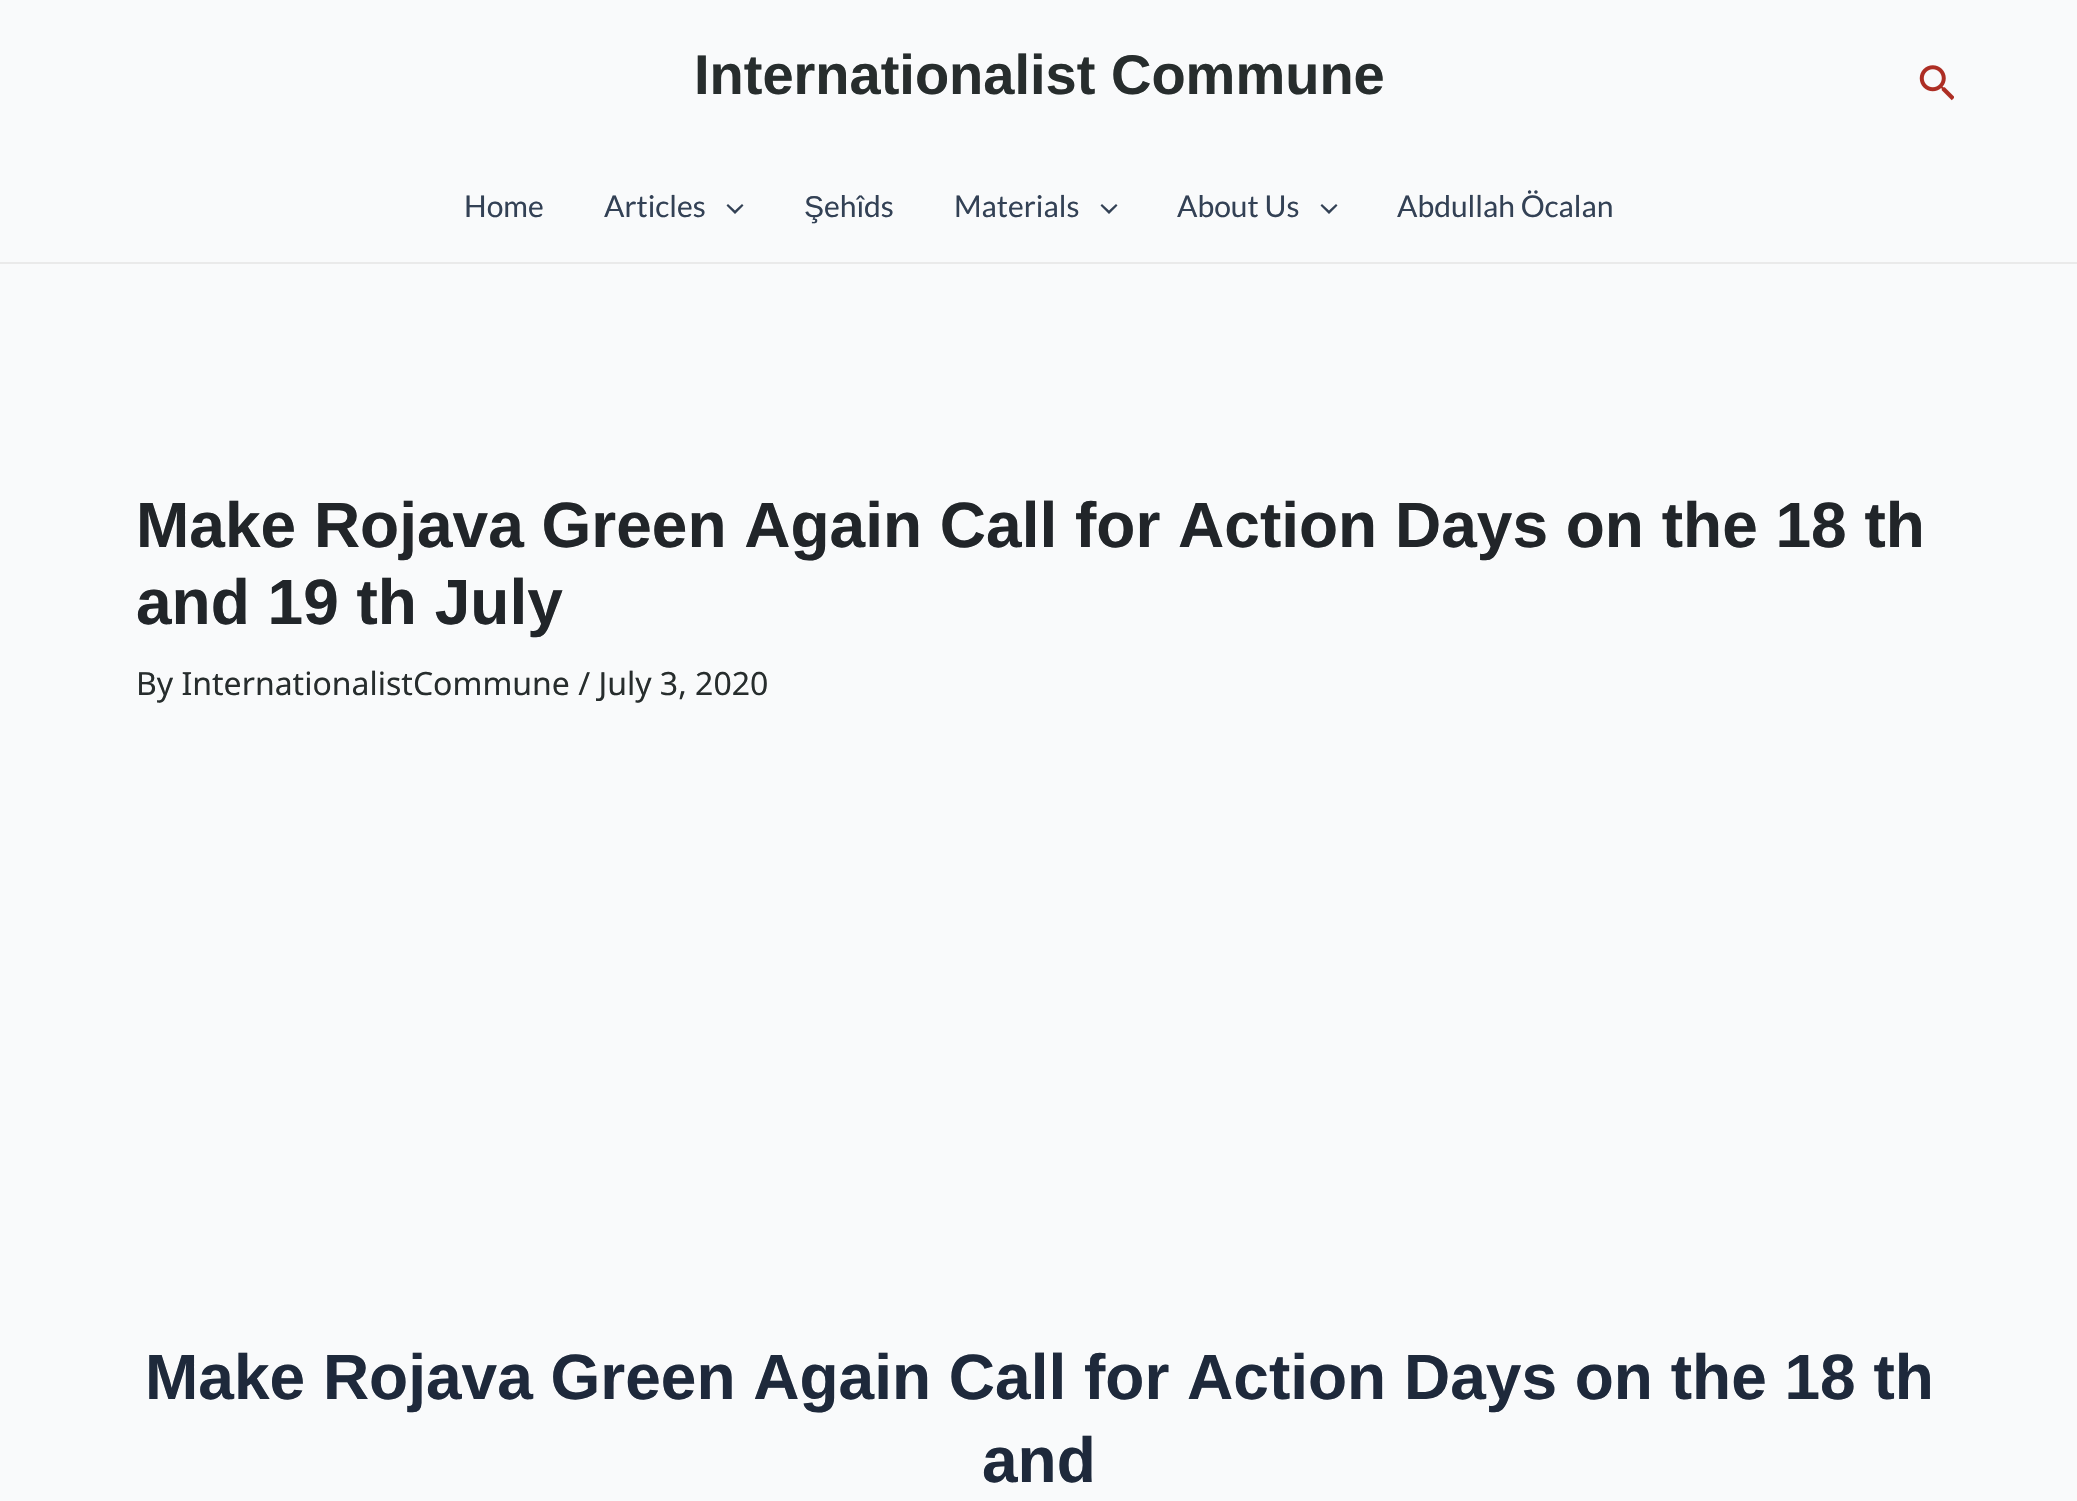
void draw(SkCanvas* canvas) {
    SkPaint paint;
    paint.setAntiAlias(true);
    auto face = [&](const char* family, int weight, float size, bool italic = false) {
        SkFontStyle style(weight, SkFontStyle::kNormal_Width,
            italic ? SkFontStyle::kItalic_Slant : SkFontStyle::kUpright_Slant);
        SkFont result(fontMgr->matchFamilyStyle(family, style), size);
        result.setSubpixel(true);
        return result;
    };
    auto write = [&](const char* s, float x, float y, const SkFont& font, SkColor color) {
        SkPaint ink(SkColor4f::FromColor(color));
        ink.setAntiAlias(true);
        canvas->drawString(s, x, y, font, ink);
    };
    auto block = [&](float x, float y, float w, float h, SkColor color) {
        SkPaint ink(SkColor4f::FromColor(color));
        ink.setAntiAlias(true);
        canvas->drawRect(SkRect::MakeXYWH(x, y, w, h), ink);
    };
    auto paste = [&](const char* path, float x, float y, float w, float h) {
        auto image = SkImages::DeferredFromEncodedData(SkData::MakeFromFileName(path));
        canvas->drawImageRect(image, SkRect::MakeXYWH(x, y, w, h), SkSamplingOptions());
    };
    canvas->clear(SkColorSetRGB(249, 250, 251));
    auto kFont1 = face("Liberation Sans", 700, 56);
    write("Internationalist Commune", 694, 94, kFont1, SkColorSetRGB(39, 45, 45));
    paste("pic1.png", 1919, 65, 35, 36);
    block(0, 262, 2077, 2, SkColorSetRGB(234, 234, 234));
    auto kFont2 = face("Lato", 400, 30);
    write("Home", 464, 217, kFont2, SkColorSetRGB(51, 65, 85));
    write("Articles", 604, 217, kFont2, SkColorSetRGB(51, 65, 85));
    paint.setColor(SkColorSetRGB(51, 65, 85));
    canvas->drawPath(SkPathBuilder().moveTo(726.5f, 205.5f).lineTo(735, 214).lineTo(743.5f, 205.5f).lineTo(742, 204).lineTo(735, 210.5f).lineTo(728, 204).close().detach(), paint);
    auto kFont3 = face("Liberation Sans", 400, 30);
    write("Ş", 804, 217, kFont3, SkColorSetRGB(51, 65, 85));
    write("ehîds", 824, 217, kFont2, SkColorSetRGB(51, 65, 85));
    write("Materials", 954, 217, kFont2, SkColorSetRGB(51, 65, 85));
    canvas->drawPath(SkPathBuilder().moveTo(1100.5f, 205.5f).lineTo(1109, 214).lineTo(1117.5f, 205.5f).lineTo(1116, 204).lineTo(1109, 210.5f).lineTo(1102, 204).close().detach(), paint);
    write("About Us", 1177, 217, kFont2, SkColorSetRGB(51, 65, 85));
    canvas->drawPath(SkPathBuilder().moveTo(1320.5f, 205.5f).lineTo(1329, 214).lineTo(1337.5f, 205.5f).lineTo(1336, 204).lineTo(1329, 210.5f).lineTo(1322, 204).close().detach(), paint);
    write("Abdullah Öcalan", 1397, 217, kFont2, SkColorSetRGB(51, 65, 85));
    auto kFont4 = face("Liberation Sans", 700, 64);
    write("Make Rojava Green Again Call for Action Days on the 18 th", 136, 547, kFont4, SkColorSetRGB(33, 37, 41));
    write("and 19 th July", 136, 624, kFont4, SkColorSetRGB(33, 37, 41));
    auto kFont5 = face("Noto Sans", 400, 32);
    write("By InternationalistCommune / July 3, 2020", 136, 695, kFont5, SkColorSetRGB(39, 45, 45));
    write("Make Rojava Green Again Call for Action Days on the 18 th", 145, 1399, kFont4, SkColorSetRGB(30, 41, 59));
    write("and", 982, 1482, kFont4, SkColorSetRGB(30, 41, 59));
}
